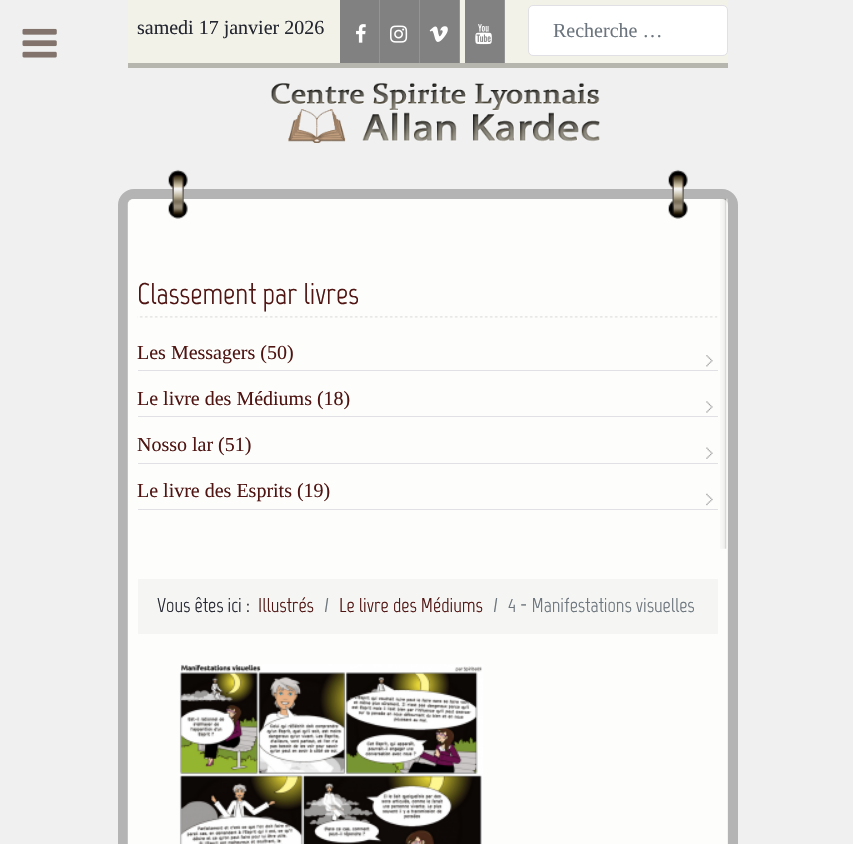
void draw(SkCanvas* canvas) {
    SkPaint paint;
    paint.setAntiAlias(true);
    auto face = [&](const char* family, int weight, float size, bool italic = false) {
        SkFontStyle style(weight, SkFontStyle::kNormal_Width,
            italic ? SkFontStyle::kItalic_Slant : SkFontStyle::kUpright_Slant);
        SkFont result(fontMgr->matchFamilyStyle(family, style), size);
        result.setSubpixel(true);
        return result;
    };
    auto write = [&](const char* s, float x, float y, const SkFont& font, SkColor color) {
        SkPaint ink(SkColor4f::FromColor(color));
        ink.setAntiAlias(true);
        canvas->drawString(s, x, y, font, ink);
    };
    auto block = [&](float x, float y, float w, float h, SkColor color) {
        SkPaint ink(SkColor4f::FromColor(color));
        ink.setAntiAlias(true);
        canvas->drawRect(SkRect::MakeXYWH(x, y, w, h), ink);
    };
    auto paste = [&](const char* path, float x, float y, float w, float h) {
        auto image = SkImages::DeferredFromEncodedData(SkData::MakeFromFileName(path));
        canvas->drawImageRect(image, SkRect::MakeXYWH(x, y, w, h), SkSamplingOptions());
    };
    canvas->clear(SkColorSetRGB(240, 240, 240));
    paste("pic1.png", 22, 28, 35, 30);
    block(128, 0, 600, 63, SkColorSetRGB(242, 242, 232));
    block(128, 63, 600, 5, SkColorSetRGB(182, 182, 174));
    auto kFont1 = face("Liberation Serif", 400, 20);
    write("samedi 17 janvier 2026", 137, 34, kFont1, SkColorSetRGB(36, 38, 48));
    block(340, 0, 39, 63, SkColorSetRGB(129, 129, 129));
    block(379, 0, 1, 63, SkColorSetRGB(148, 148, 148));
    paste("pic2.png", 356, 24, 10, 19);
    block(380, 0, 39, 63, SkColorSetRGB(129, 129, 129));
    block(419, 0, 1, 63, SkColorSetRGB(148, 148, 148));
    paste("pic3.png", 390, 25, 18, 18);
    block(420, 0, 39, 63, SkColorSetRGB(129, 129, 129));
    block(459, 0, 1, 63, SkColorSetRGB(148, 148, 148));
    paste("pic4.png", 429, 26, 19, 16);
    block(465, 0, 39, 63, SkColorSetRGB(129, 129, 129));
    block(504, 0, 1, 63, SkColorSetRGB(148, 148, 148));
    paste("pic5.png", 475, 24, 17, 21);
    paint.setColor(SK_ColorWHITE);
    canvas->drawRoundRect(SkRect::MakeXYWH(528.5f, 5.5f, 199, 50), 4.5f, 4.5f, paint);
    paint.setStyle(SkPaint::kStroke_Style);
    paint.setStrokeWidth(1);
    paint.setColor(SkColorSetRGB(224, 224, 229));
    canvas->drawRoundRect(SkRect::MakeXYWH(528.5f, 5.5f, 199, 50), 4.5f, 4.5f, paint);
    write("Recherche …", 553, 37, kFont1, SkColorSetRGB(108, 117, 125));
    paste("pic6.png", 271, 83, 329, 60);
    paint.setStrokeWidth(10);
    paint.setColor(SkColorSetRGB(180, 180, 180));
    canvas->drawPath(SkPathBuilder().moveTo(134, 194).lineTo(722, 194).cubicTo(728, 194, 733, 199, 733, 205).lineTo(733, 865).lineTo(123, 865).lineTo(123, 205).cubicTo(123, 199, 128, 194, 134, 194).close().detach(), paint);
    paint.setStyle(SkPaint::kFill_Style);
    paint.setColor(SkColorSetARGB(31, 255, 255, 170));
    canvas->drawPath(SkPathBuilder().moveTo(134, 199).lineTo(722, 199).cubicTo(725.5f, 199, 728, 201.5f, 728, 205).lineTo(728, 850).lineTo(128, 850).lineTo(128, 205).cubicTo(128, 201.5f, 130.5f, 199, 134, 199).close().detach(), paint);
    paste("pic8.png", 127, 199, 601, 645);
    paste("pic7.png", 168, 169, 20, 50);
    paste("pic7.png", 668, 169, 20, 50);
    paste("pic9.png", 720, 198, 8, 351);
    paste("pic10.png", 137, 316, 581, 2);
    auto kFont2 = face("Marvel", 400, 30);
    write("Classement par livres", 137, 304, kFont2, SkColorSetRGB(79, 21, 19));
    paste("pic11.png", 706, 355, 7, 12);
    block(138, 370, 580, 1, SkColorSetRGB(224, 224, 229));
    write("Les Messagers (50)", 137, 359, kFont1, SkColorSetRGB(79, 21, 19));
    paste("pic12.png", 706, 401, 7, 12);
    block(138, 416, 580, 1, SkColorSetRGB(224, 224, 229));
    write("Le livre des Médiums (18)", 137, 405, kFont1, SkColorSetRGB(79, 21, 19));
    paste("pic13.png", 706, 447, 7, 12);
    block(138, 463, 580, 1, SkColorSetRGB(224, 224, 229));
    write("Nosso lar (51)", 137, 451, kFont1, SkColorSetRGB(79, 21, 19));
    paste("pic14.png", 706, 493, 7, 13);
    block(138, 509, 580, 1, SkColorSetRGB(224, 224, 229));
    write("Le livre des Esprits (19)", 137, 497, kFont1, SkColorSetRGB(79, 21, 19));
    block(138, 579, 580, 55, SkColorSetRGB(245, 245, 243));
    auto kFont3 = face("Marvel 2", 400, 20);
    write("Vous êtes ici :", 157, 612, kFont3, SkColorSetRGB(36, 38, 48));
    write("Illustrés", 258, 612, kFont3, SkColorSetRGB(79, 21, 19));
    write("/", 324, 612, kFont3, SkColorSetRGB(108, 117, 125));
    write("Le livre des Médiums", 339, 612, kFont3, SkColorSetRGB(79, 21, 19));
    write("/", 493, 612, kFont3, SkColorSetRGB(108, 117, 125));
    write("4 - Manifestations visuelles", 508, 612, kFont3, SkColorSetRGB(108, 117, 125));
    paste("pic15.png", 179, 664, 304, 180);
}
